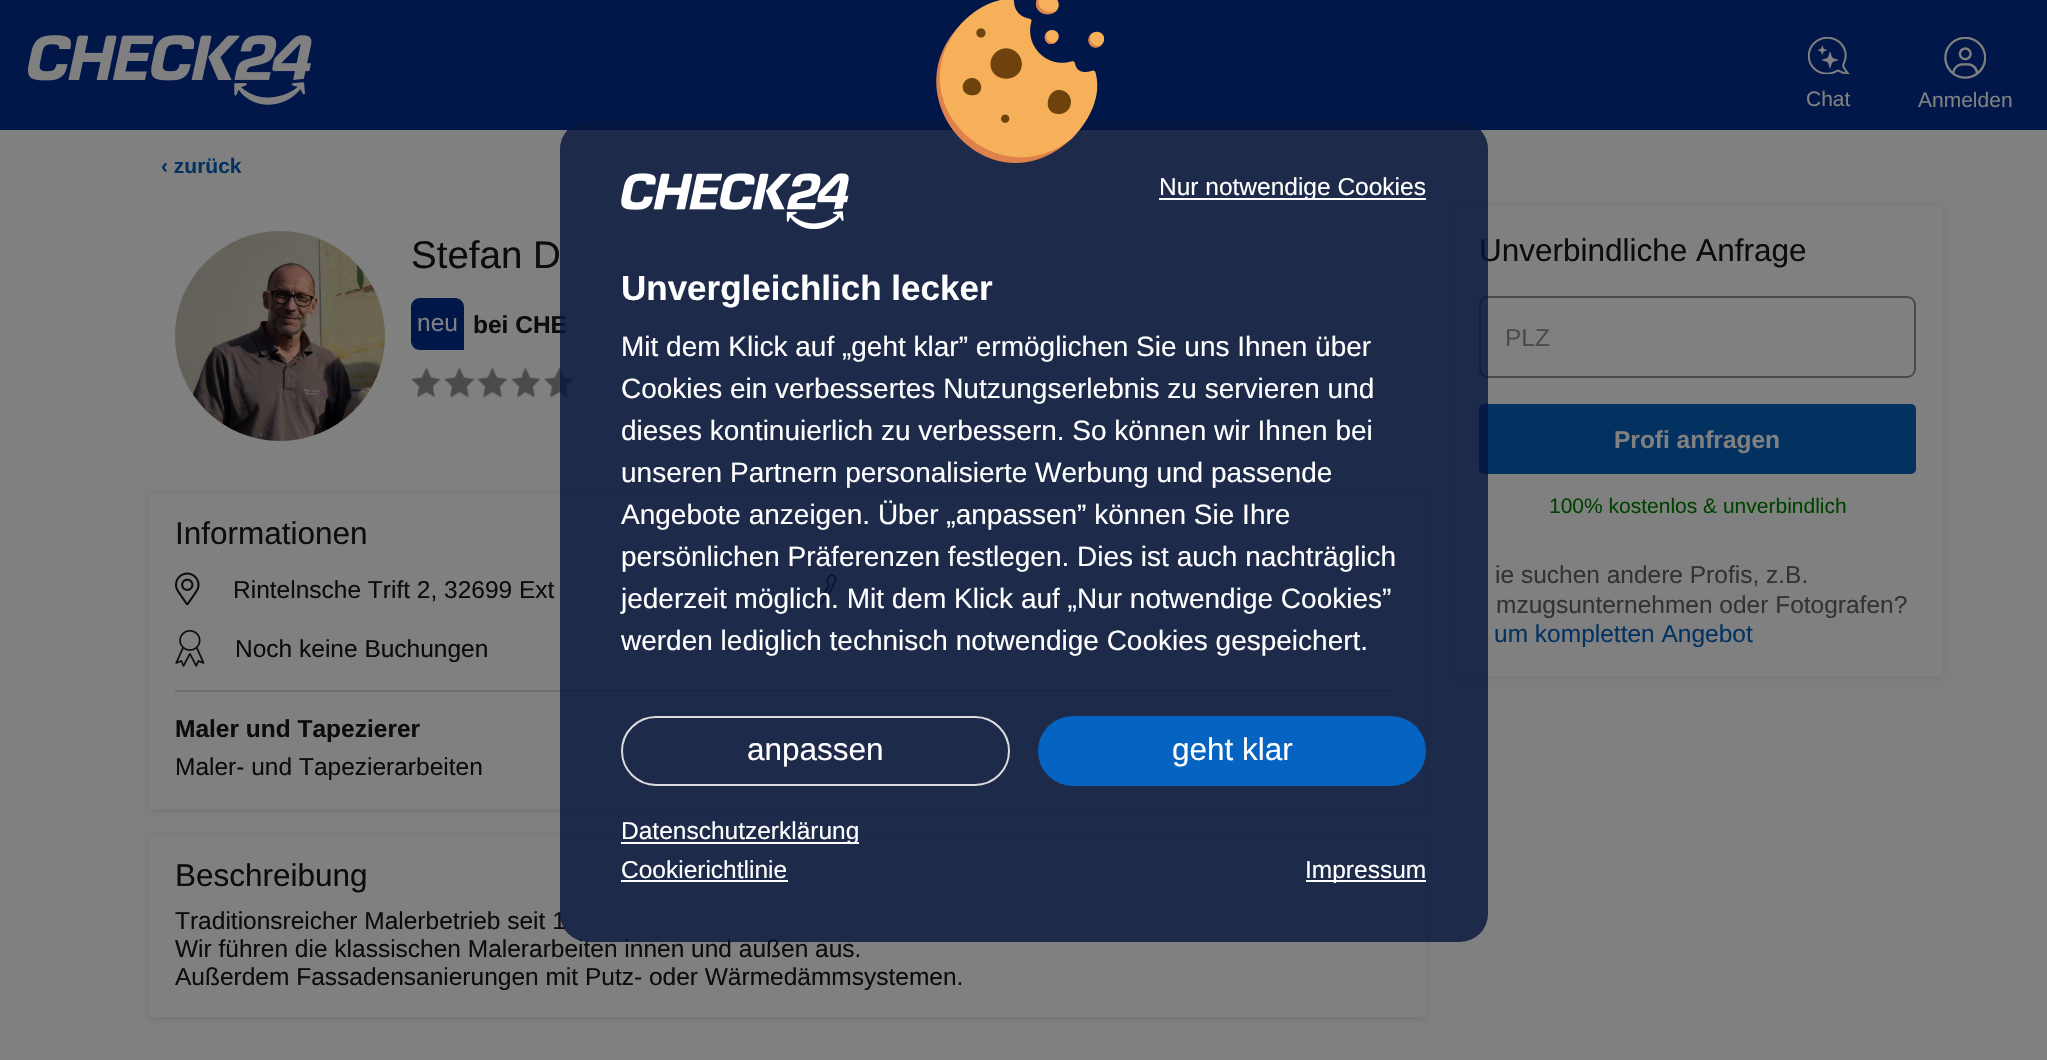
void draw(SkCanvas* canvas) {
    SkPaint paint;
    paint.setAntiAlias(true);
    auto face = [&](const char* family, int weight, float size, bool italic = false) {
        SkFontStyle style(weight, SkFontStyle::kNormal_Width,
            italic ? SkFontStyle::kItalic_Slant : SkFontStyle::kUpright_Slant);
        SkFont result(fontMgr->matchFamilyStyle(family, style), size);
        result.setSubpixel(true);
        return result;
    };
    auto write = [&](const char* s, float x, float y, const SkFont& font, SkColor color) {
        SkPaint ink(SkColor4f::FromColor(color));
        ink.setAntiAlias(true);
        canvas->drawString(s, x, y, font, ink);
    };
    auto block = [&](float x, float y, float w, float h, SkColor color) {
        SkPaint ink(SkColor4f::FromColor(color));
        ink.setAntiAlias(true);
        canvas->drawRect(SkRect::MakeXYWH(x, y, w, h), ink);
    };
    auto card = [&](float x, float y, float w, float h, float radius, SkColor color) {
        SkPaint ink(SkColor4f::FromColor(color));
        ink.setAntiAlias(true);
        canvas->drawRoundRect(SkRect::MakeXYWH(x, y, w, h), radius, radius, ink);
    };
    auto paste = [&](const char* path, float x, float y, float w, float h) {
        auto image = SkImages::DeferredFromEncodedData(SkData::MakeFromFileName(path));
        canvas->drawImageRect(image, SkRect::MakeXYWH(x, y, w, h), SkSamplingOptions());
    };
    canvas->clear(SkColorSetRGB(1, 23, 74));
    paste("pic1.png", 28, 35, 284, 70);
    paste("pic2.png", 1808, 37, 42, 37);
    auto kFont1 = face("Liberation Sans", 400, 21);
    write("Chat", 1806, 106, kFont1, SkColorSetRGB(128, 128, 128));
    paste("pic3.png", 1944, 37, 42, 42);
    write("Anmelden", 1918, 107, kFont1, SkColorSetRGB(128, 128, 128));
    block(0, 130, 2047, 930, SkColorSetRGB(128, 128, 128));
    auto kFont2 = face("Liberation Sans", 700, 21);
    write("‹ zurück", 161, 173, kFont2, SkColorSetRGB(3, 50, 97));
    paste("pic4.png", 175, 231, 210, 210);
    auto kFont3 = face("Liberation Sans", 400, 38.5f);
    write("Stefan D", 411, 268, kFont3, SkColorSetRGB(12, 12, 12));
    paint.setColor(SkColorSetRGB(1, 23, 74));
    canvas->drawPath(SkPathBuilder().moveTo(420, 298).lineTo(455, 298).cubicTo(460, 298, 464, 302, 464, 307).lineTo(464, 350).lineTo(420, 350).cubicTo(415, 350, 411, 346, 411, 341).lineTo(411, 307).cubicTo(411, 302, 415, 298, 420, 298).close().detach(), paint);
    auto kFont4 = face("Liberation Sans", 400, 24.5f);
    write("neu", 417, 331, kFont4, SkColorSetRGB(128, 128, 128));
    auto kFont5 = face("Liberation Sans", 700, 24.5f);
    write("bei CHE", 473, 333, kFont5, SkColorSetRGB(12, 12, 12));
    paste("pic5.png", 411, 367, 163, 31);
    paint.setColor(SkColorSetARGB(26, 0, 0, 0));
    paint.setMaskFilter(SkMaskFilter::MakeBlur(kNormal_SkBlurStyle, 4.5f));
    canvas->drawRoundRect(SkRect::MakeXYWH(149, 495, 1277, 315), 5, 5, paint);
    paint.setMaskFilter(nullptr);
    card(149, 494, 1277, 315, 5, SkColorSetRGB(128, 128, 128));
    auto kFont6 = face("Liberation Sans", 400, 31.5f);
    write("Informationen", 175, 544, kFont6, SkColorSetRGB(12, 12, 12));
    paste("pic6.png", 175, 572, 25, 34);
    write("Rintelnsche Trift 2, 32699 Ext", 233, 598, kFont4, SkColorSetRGB(12, 12, 12));
    paste("pic7.png", 814, 574, 23, 32);
    paste("pic8.png", 175, 630, 30, 37);
    write("Noch keine Buchungen", 235, 657, kFont4, SkColorSetRGB(12, 12, 12));
    block(175, 690, 1216, 2, SkColorSetRGB(110, 110, 110));
    write("Maler und Tapezierer", 175, 737, kFont5, SkColorSetRGB(12, 12, 12));
    write("Maler- und Tapezierarbeiten", 175, 775, kFont4, SkColorSetRGB(12, 12, 12));
    paint.setMaskFilter(SkMaskFilter::MakeBlur(kNormal_SkBlurStyle, 4.5f));
    canvas->drawRoundRect(SkRect::MakeXYWH(149, 837, 1277, 182), 5, 5, paint);
    paint.setMaskFilter(nullptr);
    card(149, 835, 1277, 182, 5, SkColorSetRGB(128, 128, 128));
    write("Beschreibung", 175, 886, kFont6, SkColorSetRGB(12, 12, 12));
    write("Traditionsreicher Malerbetrieb seit 1", 175, 929, kFont4, SkColorSetRGB(12, 12, 12));
    write("Wir führen die klassischen Malerarbeiten innen und außen aus.", 175, 957, kFont4, SkColorSetRGB(12, 12, 12));
    write("Außerdem Fassadensanierungen mit Putz- oder Wärmedämmsystemen.", 175, 985, kFont4, SkColorSetRGB(12, 12, 12));
    paint.setMaskFilter(SkMaskFilter::MakeBlur(kNormal_SkBlurStyle, 4.5f));
    canvas->drawRoundRect(SkRect::MakeXYWH(1453, 207, 490, 470), 5, 5, paint);
    paint.setMaskFilter(nullptr);
    paint.setColor(SkColorSetRGB(128, 128, 128));
    canvas->drawPath(SkPathBuilder().moveTo(1453, 205).lineTo(1943, 205).lineTo(1943, 671).cubicTo(1943, 674, 1941, 676, 1938, 676).lineTo(1458, 676).cubicTo(1455, 676, 1453, 674, 1453, 671).close().detach(), paint);
    write("Unverbindliche Anfrage", 1479, 261, kFont6, SkColorSetRGB(12, 12, 12));
    paint.setStyle(SkPaint::kStroke_Style);
    paint.setStrokeWidth(2);
    paint.setColor(SkColorSetRGB(74, 74, 74));
    canvas->drawRoundRect(SkRect::MakeXYWH(1480, 297, 435, 80), 8, 8, paint);
    write("PLZ", 1505, 346, kFont4, SkColorSetRGB(74, 74, 74));
    card(1479, 404, 437, 70, 5, SkColorSetRGB(3, 50, 97));
    write("Profi anfragen", 1614, 448, kFont5, SkColorSetRGB(128, 128, 128));
    write("100% kostenlos & unverbindlich", 1549, 513, kFont1, SkColorSetRGB(0, 66, 0));
    write("ie suchen andere Profis, z.B.", 1495, 583, kFont4, SkColorSetRGB(51, 51, 51));
    write("mzugsunternehmen oder Fotografen?", 1496, 613, kFont4, SkColorSetRGB(51, 51, 51));
    write("um kompletten Angebot", 1494, 642, kFont4, SkColorSetRGB(3, 50, 97));
    card(560, 121, 928, 821, 28, SkColorSetARGB(204, 4, 20, 60));
    paste("pic9.png", 936, 0, 168, 163);
    paste("pic10.png", 621, 173, 228, 56);
    block(1159, 198, 267, 2, SK_ColorWHITE);
    write("Nur notwendige Cookies", 1159, 195, kFont4, SK_ColorWHITE);
    auto kFont7 = face("Liberation Sans", 700, 35);
    write("Unvergleichlich lecker", 621, 300, kFont7, SK_ColorWHITE);
    auto kFont8 = face("Liberation Sans", 400, 28);
    write("Mit dem Klick auf „geht klar” ermöglichen Sie uns Ihnen über", 621, 356, kFont8, SK_ColorWHITE);
    write("Cookies ein verbessertes Nutzungserlebnis zu servieren und", 621, 398, kFont8, SK_ColorWHITE);
    write("dieses kontinuierlich zu verbessern. So können wir Ihnen bei", 621, 440, kFont8, SK_ColorWHITE);
    write("unseren Partnern personalisierte Werbung und passende", 621, 482, kFont8, SK_ColorWHITE);
    write("Angebote anzeigen. Über „anpassen” können Sie Ihre", 621, 524, kFont8, SK_ColorWHITE);
    write("persönlichen Präferenzen festlegen. Dies ist auch nachträglich", 621, 566, kFont8, SK_ColorWHITE);
    write("jederzeit möglich. Mit dem Klick auf „Nur notwendige Cookies”", 621, 608, kFont8, SK_ColorWHITE);
    write("werden lediglich technisch notwendige Cookies gespeichert.", 621, 650, kFont8, SK_ColorWHITE);
    paint.setColor(SkColorSetRGB(220, 220, 220));
    canvas->drawRoundRect(SkRect::MakeXYWH(622, 717, 387, 68), 34, 34, paint);
    write("anpassen", 747, 760, kFont6, SK_ColorWHITE);
    card(1038, 716, 388, 70, 35, SkColorSetRGB(5, 99, 193));
    write("geht klar", 1172, 760, kFont6, SK_ColorWHITE);
    block(621, 842, 238, 2, SK_ColorWHITE);
    write("Datenschutzerklärung", 621, 839, kFont4, SK_ColorWHITE);
    write("Cookierichtlinie", 621, 878, kFont4, SK_ColorWHITE);
    block(621, 880, 167, 2, SK_ColorWHITE);
    block(1306, 880, 120, 2, SK_ColorWHITE);
    write("Impressum", 1305, 878, kFont4, SK_ColorWHITE);
}
